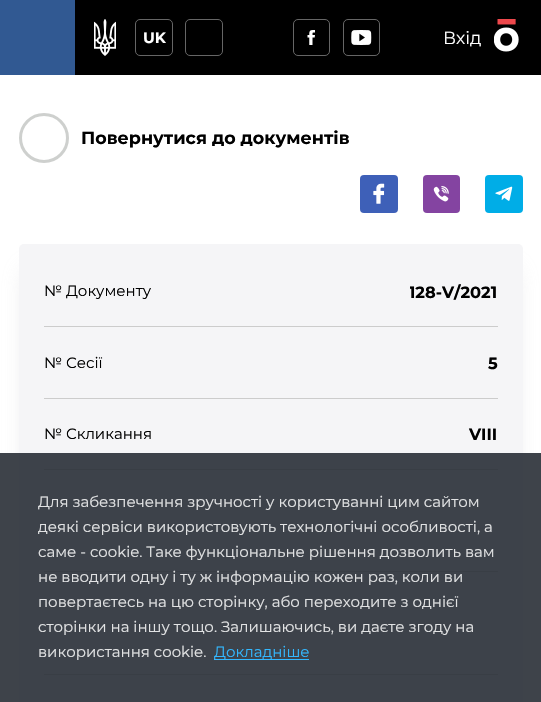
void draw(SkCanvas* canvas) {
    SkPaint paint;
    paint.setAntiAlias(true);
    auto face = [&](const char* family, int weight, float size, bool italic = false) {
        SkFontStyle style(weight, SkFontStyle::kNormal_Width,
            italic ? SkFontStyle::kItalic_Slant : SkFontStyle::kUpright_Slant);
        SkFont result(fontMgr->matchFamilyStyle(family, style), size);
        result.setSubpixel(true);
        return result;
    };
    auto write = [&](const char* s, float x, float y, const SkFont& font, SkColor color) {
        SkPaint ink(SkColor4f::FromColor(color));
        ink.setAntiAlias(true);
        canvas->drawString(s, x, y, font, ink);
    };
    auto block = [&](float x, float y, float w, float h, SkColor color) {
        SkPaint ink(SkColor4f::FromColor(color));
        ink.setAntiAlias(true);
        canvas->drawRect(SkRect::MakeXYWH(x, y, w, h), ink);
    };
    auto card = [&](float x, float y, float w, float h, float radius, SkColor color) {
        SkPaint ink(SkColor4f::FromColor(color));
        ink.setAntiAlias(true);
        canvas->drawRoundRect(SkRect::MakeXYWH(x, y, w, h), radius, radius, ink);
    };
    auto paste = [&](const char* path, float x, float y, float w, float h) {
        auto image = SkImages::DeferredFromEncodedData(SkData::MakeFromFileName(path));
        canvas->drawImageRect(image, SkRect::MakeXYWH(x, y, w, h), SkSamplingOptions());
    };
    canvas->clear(SK_ColorWHITE);
    block(75, 0, 466, 75, SK_ColorBLACK);
    block(0, 0, 75, 75, SkColorSetRGB(49, 89, 146));
    paste("pic1.png", 94, 19, 22, 37);
    paint.setStyle(SkPaint::kStroke_Style);
    paint.setStrokeWidth(1);
    paint.setColor(SkColorSetRGB(102, 102, 102));
    canvas->drawRoundRect(SkRect::MakeXYWH(135.5f, 19.5f, 37, 36), 4.5f, 4.5f, paint);
    auto kFont1 = face("Montserrat", 700, 15);
    write("UK", 143, 43, kFont1, SK_ColorWHITE);
    canvas->drawRoundRect(SkRect::MakeXYWH(185.5f, 19.5f, 37, 36), 4.5f, 4.5f, paint);
    canvas->drawRoundRect(SkRect::MakeXYWH(293.5f, 19.5f, 36, 36), 4.5f, 4.5f, paint);
    paste("pic2.png", 307, 30, 8, 15);
    canvas->drawRoundRect(SkRect::MakeXYWH(343.5f, 19.5f, 36, 36), 4.5f, 4.5f, paint);
    paste("pic3.png", 351, 30, 21, 15);
    auto kFont2 = face("Montserrat", 400, 17.5f);
    write("Вхід", 443, 44, kFont2, SK_ColorWHITE);
    paste("pic4.png", 494, 19, 25, 33);
    paint.setStrokeWidth(3);
    paint.setColor(SkColorSetRGB(206, 208, 206));
    canvas->drawCircle(44, 138, 23.5f, paint);
    auto kFont3 = face("Montserrat", 700, 17.5f);
    write("Повернутися до документів", 81, 144, kFont3, SK_ColorBLACK);
    card(360, 175, 38, 38, 4, SkColorSetRGB(62, 96, 184));
    paste("pic5.png", 373, 183, 12, 21);
    card(423, 175, 37, 38, 4, SkColorSetRGB(132, 68, 161));
    paste("pic6.png", 433, 186, 16, 16);
    card(485, 175, 38, 38, 4, SkColorSetRGB(0, 173, 231));
    paste("pic7.png", 495, 186, 18, 15);
    paint.setStyle(SkPaint::kFill_Style);
    paint.setColor(SkColorSetARGB(179, 220, 220, 222));
    paint.setMaskFilter(SkMaskFilter::MakeBlur(kNormal_SkBlurStyle, 11));
    canvas->drawRect(SkRect::MakeXYWH(26, 270, 489, 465), paint);
    paint.setMaskFilter(nullptr);
    card(19, 244, 504, 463, 5, SkColorSetRGB(245, 245, 247));
    block(44, 326, 454, 1, SkColorSetRGB(204, 204, 204));
    auto kFont4 = face("Montserrat", 400, 15);
    write("№ Документу", 44, 296, kFont4, SK_ColorBLACK);
    canvas->save();
    canvas->clipRect(SkRect::MakeXYWH(410, 281, 88, 20));
    auto kFont5 = face("Montserrat", 700, 16.25f);
    write("128-V/2021", 409, 298, kFont5, SK_ColorBLACK);
    canvas->restore();
    block(44, 398, 454, 1, SkColorSetRGB(204, 204, 204));
    write("№ Сесії", 44, 368, kFont4, SK_ColorBLACK);
    write("5", 488, 369, kFont5, SK_ColorBLACK);
    block(44, 469, 454, 1, SkColorSetRGB(204, 204, 204));
    write("№ Скликання", 44, 439, kFont4, SK_ColorBLACK);
    write("VIII", 469, 440, kFont5, SK_ColorBLACK);
    block(44, 571, 454, 1, SkColorSetRGB(204, 204, 204));
    block(44, 674, 454, 1, SkColorSetRGB(204, 204, 204));
    block(0, 453, 541, 249, SkColorSetARGB(230, 41, 47, 54));
    write("Для забезпечення зручності у користуванні цим сайтом", 38, 507, kFont4, SkColorSetRGB(226, 227, 228));
    write("деякі сервіси використовують технологічні особливості, а", 38, 532, kFont4, SkColorSetRGB(226, 227, 228));
    write("саме - cookie. Таке функціональне рішення дозволить вам", 38, 557, kFont4, SkColorSetRGB(226, 227, 228));
    write("не вводити одну і ту ж інформацію кожен раз, коли ви", 38, 582, kFont4, SkColorSetRGB(226, 227, 228));
    write("повертаєтесь на цю сторінку, або переходите з однієї", 38, 607, kFont4, SkColorSetRGB(226, 227, 228));
    write("сторінки на іншу тощо. Залишаючись, ви даєте згоду на", 38, 632, kFont4, SkColorSetRGB(226, 227, 228));
    write("використання cookie.", 38, 657, kFont4, SkColorSetRGB(226, 227, 228));
    block(214, 659, 95, 1, SkColorSetRGB(51, 184, 255));
    write("Докладніше", 214, 657, kFont4, SkColorSetRGB(51, 184, 255));
}
